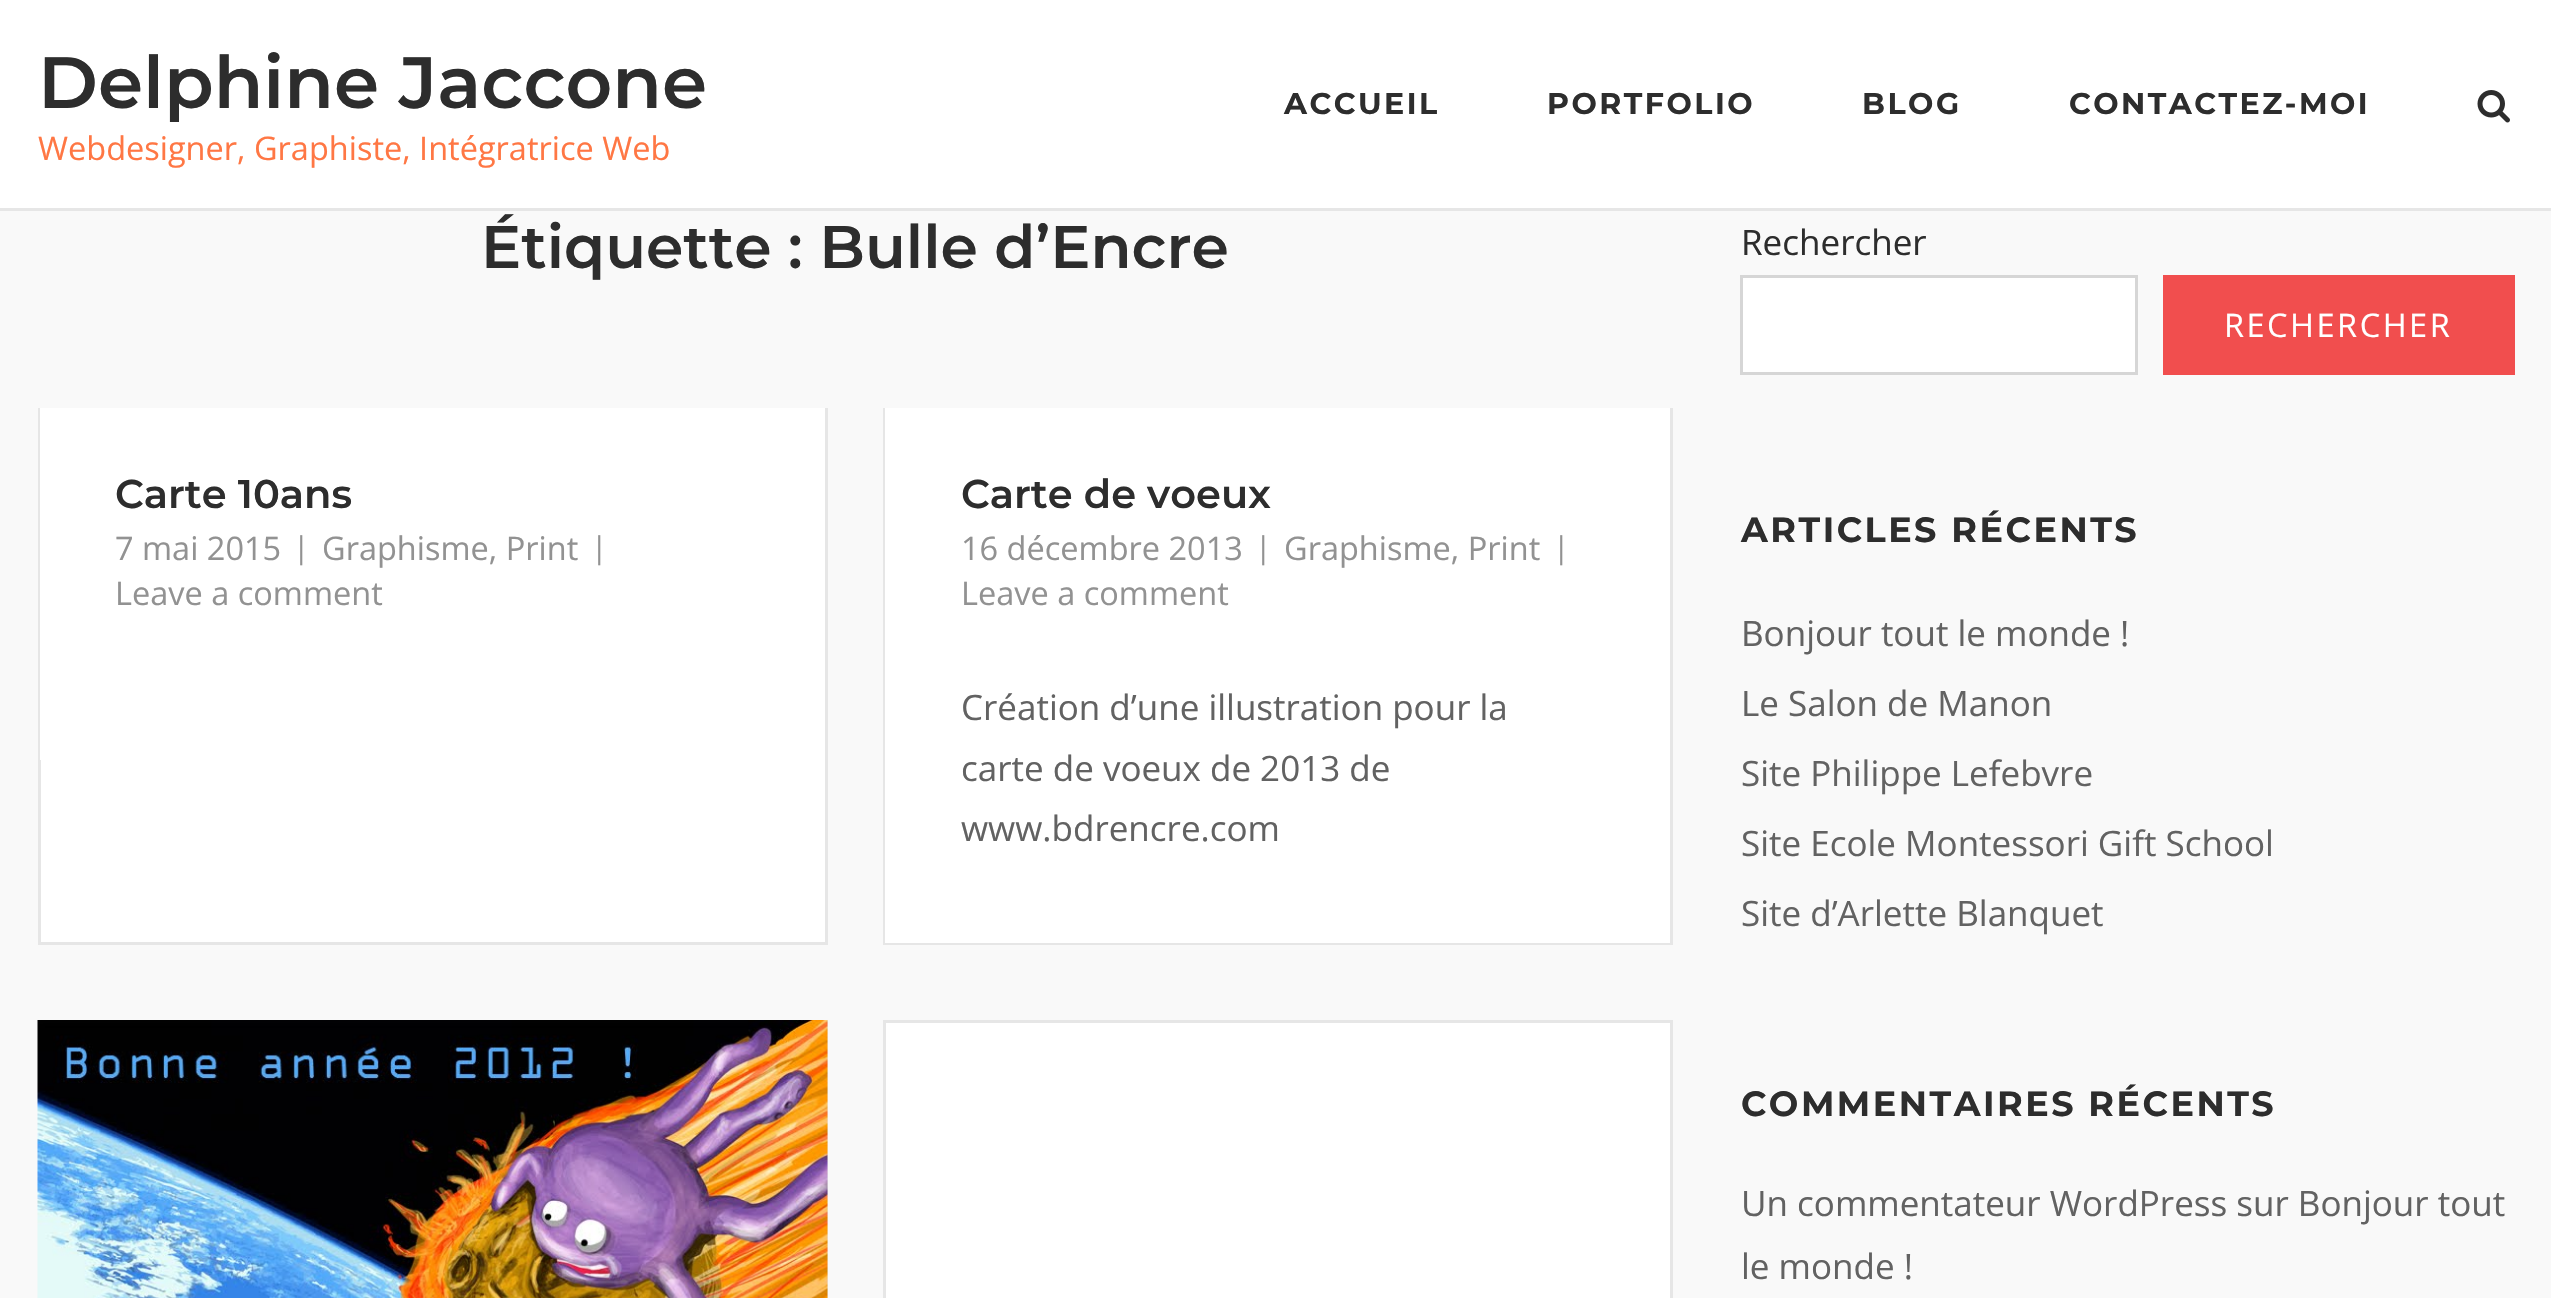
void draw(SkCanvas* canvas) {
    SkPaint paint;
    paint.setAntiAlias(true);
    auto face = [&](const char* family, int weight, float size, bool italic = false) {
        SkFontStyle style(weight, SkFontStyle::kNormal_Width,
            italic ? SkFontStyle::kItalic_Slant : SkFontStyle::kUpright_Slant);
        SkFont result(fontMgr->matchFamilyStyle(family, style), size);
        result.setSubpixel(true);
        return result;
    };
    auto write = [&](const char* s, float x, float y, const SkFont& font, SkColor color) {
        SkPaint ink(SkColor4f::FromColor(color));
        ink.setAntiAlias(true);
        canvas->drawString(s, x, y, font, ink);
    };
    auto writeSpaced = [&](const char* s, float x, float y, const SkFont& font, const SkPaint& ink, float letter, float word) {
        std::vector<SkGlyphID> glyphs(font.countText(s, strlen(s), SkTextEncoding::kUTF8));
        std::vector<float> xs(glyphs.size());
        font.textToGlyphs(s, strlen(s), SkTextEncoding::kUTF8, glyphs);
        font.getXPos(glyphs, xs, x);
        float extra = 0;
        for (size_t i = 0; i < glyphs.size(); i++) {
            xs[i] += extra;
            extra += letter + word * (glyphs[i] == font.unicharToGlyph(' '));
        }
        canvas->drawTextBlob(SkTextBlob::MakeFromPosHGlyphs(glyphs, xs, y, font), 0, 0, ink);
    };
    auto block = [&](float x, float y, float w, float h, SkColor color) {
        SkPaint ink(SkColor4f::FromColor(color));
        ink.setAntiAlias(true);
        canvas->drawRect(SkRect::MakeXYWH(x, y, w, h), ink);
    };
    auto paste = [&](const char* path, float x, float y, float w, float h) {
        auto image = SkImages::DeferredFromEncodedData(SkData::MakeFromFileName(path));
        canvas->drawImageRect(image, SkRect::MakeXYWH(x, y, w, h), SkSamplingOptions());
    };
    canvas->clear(SkColorSetRGB(249, 249, 249));
    block(0, 0, 2551, 208, SK_ColorWHITE);
    block(0, 208, 2551, 3, SkColorSetRGB(230, 230, 230));
    auto kFont1 = face("Montserrat", 600, 72.5f);
    write("Delphine Jaccone", 38, 108, kFont1, SkColorSetRGB(45, 45, 45));
    auto kFont2 = face("Open Sans", 400, 32.5f);
    write("Webdesigner, Graphiste, Intégratrice Web", 38, 160, kFont2, SkColorSetRGB(255, 119, 68));
    auto kFont3 = face("Montserrat", 700, 30);
    paint.setColor(SkColorSetRGB(45, 45, 45));
    writeSpaced("ACCUEIL", 1284, 114, kFont3, paint, 2.5f, 0);
    writeSpaced("PORTFOLIO", 1547, 114, kFont3, paint, 2.5f, 0);
    writeSpaced("BLOG", 1862, 114, kFont3, paint, 2.5f, 0);
    writeSpaced("CONTACTEZ-MOI", 2069, 114, kFont3, paint, 2.5f, 0);
    paste("pic1.png", 2477, 90, 33, 33);
    auto kFont4 = face("Montserrat", 600, 60);
    write("Étiquette : Bulle d’Encre", 481, 268, kFont4, SkColorSetRGB(45, 45, 45));
    block(41, 760, 784, 182, SK_ColorWHITE);
    paint.setStyle(SkPaint::kStroke_Style);
    paint.setStrokeWidth(3);
    paint.setColor(SkColorSetRGB(230, 230, 230));
    canvas->drawRect(SkRect::MakeXYWH(39.5f, 409.5f, 787, 534), paint);
    block(40, 408, 785, 352, SK_ColorWHITE);
    auto kFont5 = face("Montserrat", 600, 40);
    write("Carte 10ans", 115, 508, kFont5, SkColorSetRGB(45, 45, 45));
    write("7 mai 2015", 115, 560, kFont2, SkColorSetRGB(146, 146, 146));
    auto kFont6 = face("Open Sans", 400, 30);
    write("|", 293, 558, kFont6, SkColorSetRGB(146, 146, 146));
    write("Graphisme, Print", 322, 560, kFont2, SkColorSetRGB(146, 146, 146));
    write("|", 591, 558, kFont6, SkColorSetRGB(146, 146, 146));
    write("Leave a comment", 115, 605, kFont2, SkColorSetRGB(146, 146, 146));
    canvas->drawRect(SkRect::MakeXYWH(884.5f, 409.5f, 787, 534), paint);
    block(885, 408, 785, 535, SK_ColorWHITE);
    write("Carte de voeux", 961, 508, kFont5, SkColorSetRGB(45, 45, 45));
    write("16 décembre 2013", 961, 560, kFont2, SkColorSetRGB(146, 146, 146));
    write("|", 1255, 558, kFont6, SkColorSetRGB(146, 146, 146));
    write("Graphisme, Print", 1284, 560, kFont2, SkColorSetRGB(146, 146, 146));
    write("|", 1553, 558, kFont6, SkColorSetRGB(146, 146, 146));
    write("Leave a comment", 961, 605, kFont2, SkColorSetRGB(146, 146, 146));
    auto kFont7 = face("Open Sans", 400, 35);
    write("Création d’une illustration pour la", 961, 720, kFont7, SkColorSetRGB(98, 98, 98));
    write("carte de voeux de 2013 de", 961, 781, kFont7, SkColorSetRGB(98, 98, 98));
    write("www.bdrencre.com", 961, 841, kFont7, SkColorSetRGB(98, 98, 98));
    canvas->drawRect(SkRect::MakeXYWH(39.5f, 1021.5f, 787, 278), paint);
    paste("pic2.png", 37, 1020, 791, 278);
    paint.setStyle(SkPaint::kFill_Style);
    paint.setColor(SK_ColorWHITE);
    canvas->drawRect(SkRect::MakeXYWH(884.5f, 1021.5f, 787, 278), paint);
    paint.setStyle(SkPaint::kStroke_Style);
    paint.setColor(SkColorSetRGB(230, 230, 230));
    canvas->drawRect(SkRect::MakeXYWH(884.5f, 1021.5f, 787, 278), paint);
    write("Rechercher", 1741, 255, kFont7, SkColorSetRGB(45, 45, 45));
    paint.setStyle(SkPaint::kFill_Style);
    paint.setColor(SK_ColorWHITE);
    canvas->drawRect(SkRect::MakeXYWH(1741.5f, 276.5f, 395, 97), paint);
    paint.setStyle(SkPaint::kStroke_Style);
    paint.setColor(SkColorSetRGB(214, 214, 214));
    canvas->drawRect(SkRect::MakeXYWH(1741.5f, 276.5f, 395, 97), paint);
    block(2163, 275, 352, 100, SkColorSetRGB(241, 78, 78));
    paint.setStyle(SkPaint::kFill_Style);
    paint.setColor(SK_ColorWHITE);
    writeSpaced("RECHERCHER", 2224, 337, kFont2, paint, 2.5f, 0);
    auto kFont8 = face("Montserrat", 700, 35);
    paint.setColor(SkColorSetRGB(45, 45, 45));
    writeSpaced("ARTICLES RÉCENTS", 1741, 542, kFont8, paint, 2.5f, 0);
    write("Bonjour tout le monde !", 1741, 646, kFont7, SkColorSetRGB(98, 98, 98));
    write("Le Salon de Manon", 1741, 716, kFont7, SkColorSetRGB(98, 98, 98));
    write("Site Philippe Lefebvre", 1741, 786, kFont7, SkColorSetRGB(98, 98, 98));
    write("Site Ecole Montessori Gift School", 1741, 856, kFont7, SkColorSetRGB(98, 98, 98));
    write("Site d’Arlette Blanquet", 1741, 926, kFont7, SkColorSetRGB(98, 98, 98));
    writeSpaced("COMMENTAIRES RÉCENTS", 1741, 1116, kFont8, paint, 2.5f, 0);
    write("Un commentateur WordPress sur Bonjour tout", 1741, 1216, kFont7, SkColorSetRGB(98, 98, 98));
    write("le monde !", 1741, 1279, kFont7, SkColorSetRGB(98, 98, 98));
}
